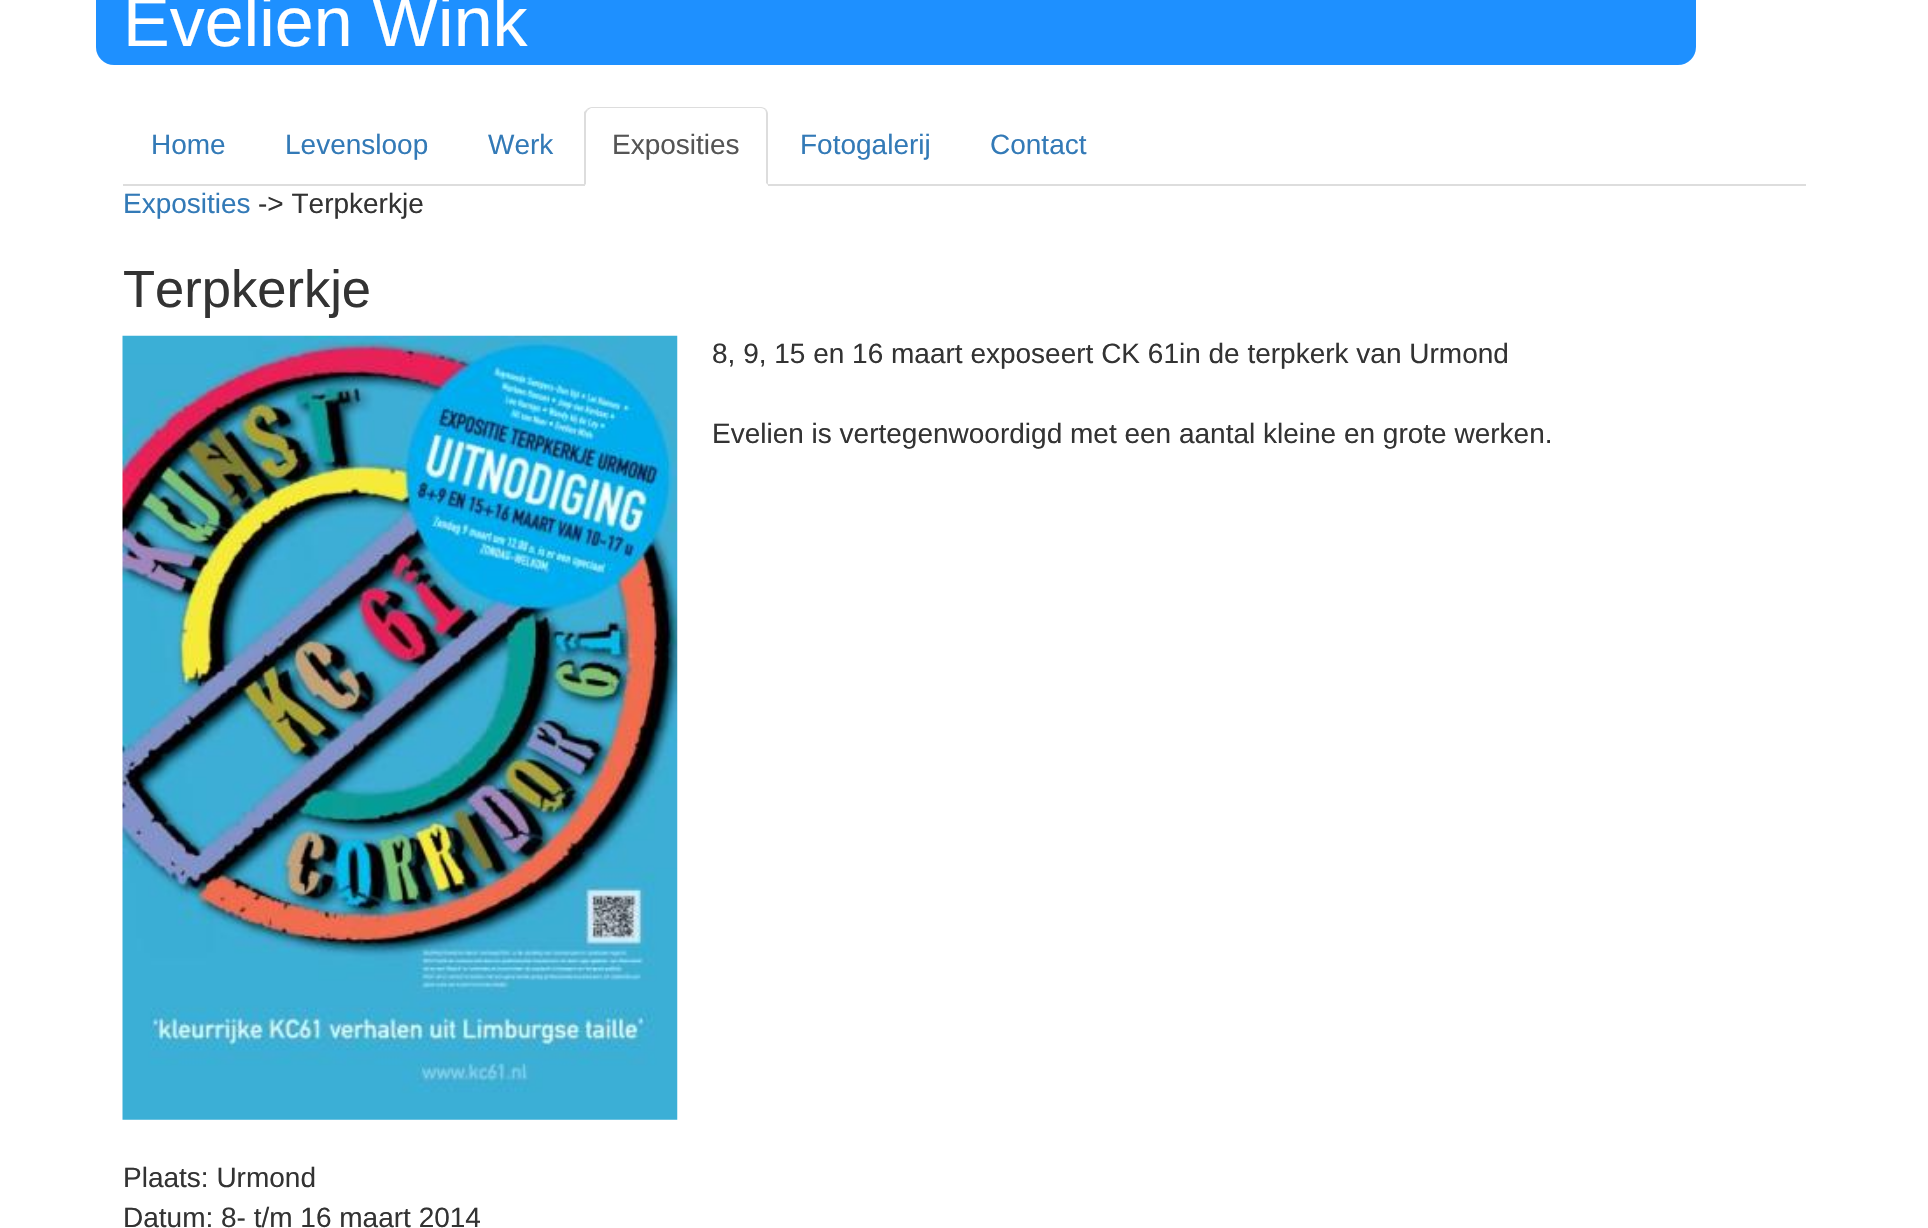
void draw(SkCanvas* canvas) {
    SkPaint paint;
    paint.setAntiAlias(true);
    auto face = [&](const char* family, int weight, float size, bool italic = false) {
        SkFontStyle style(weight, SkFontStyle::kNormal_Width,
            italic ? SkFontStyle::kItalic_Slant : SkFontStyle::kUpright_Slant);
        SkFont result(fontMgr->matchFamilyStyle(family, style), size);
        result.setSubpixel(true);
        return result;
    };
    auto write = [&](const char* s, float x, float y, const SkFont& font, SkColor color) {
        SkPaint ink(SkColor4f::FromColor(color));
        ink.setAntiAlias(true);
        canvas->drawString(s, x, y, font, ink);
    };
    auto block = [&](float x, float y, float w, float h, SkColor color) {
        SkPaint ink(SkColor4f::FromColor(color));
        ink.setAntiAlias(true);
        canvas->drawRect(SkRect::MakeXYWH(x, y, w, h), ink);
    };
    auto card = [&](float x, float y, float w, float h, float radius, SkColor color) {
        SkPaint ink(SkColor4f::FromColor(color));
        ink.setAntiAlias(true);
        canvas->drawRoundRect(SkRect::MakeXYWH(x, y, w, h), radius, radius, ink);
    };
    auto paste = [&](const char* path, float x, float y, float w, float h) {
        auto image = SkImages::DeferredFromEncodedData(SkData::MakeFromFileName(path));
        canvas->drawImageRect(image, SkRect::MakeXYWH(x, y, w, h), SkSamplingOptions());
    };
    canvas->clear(SK_ColorWHITE);
    card(96, -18, 1600, 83, 18, SkColorSetRGB(30, 144, 255));
    auto kFont1 = face("Liberation Sans", 400, 70);
    write("Evelien Wink", 123, 46, kFont1, SK_ColorWHITE);
    block(123, 184, 1683, 2, SkColorSetRGB(221, 221, 221));
    auto kFont2 = face("Liberation Sans", 400, 28);
    write("Home", 151, 154, kFont2, SkColorSetRGB(51, 122, 183));
    write("Levensloop", 285, 154, kFont2, SkColorSetRGB(51, 122, 183));
    write("Werk", 488, 154, kFont2, SkColorSetRGB(51, 122, 183));
    paint.setColor(SK_ColorWHITE);
    canvas->drawPath(SkPathBuilder().moveTo(592, 107).lineTo(761, 107).cubicTo(765, 107, 768, 110, 768, 114).lineTo(768, 186).lineTo(585, 186).lineTo(585, 114).cubicTo(585, 110, 588, 107, 592, 107).close().detach(), paint);
    paint.setColor(SkColorSetRGB(221, 221, 221));
    canvas->drawPath(SkPathBuilder().moveTo(592, 107).cubicTo(590, 107, 588, 108, 587, 109).lineTo(588, 110).lineTo(591, 108).lineTo(761, 108).cubicTo(763, 108, 764, 109, 765, 110).lineTo(766, 109).cubicTo(765, 108, 763, 107, 761, 107).close().detach(), paint);
    canvas->drawPath(SkPathBuilder().moveTo(768, 185).lineTo(768, 114).cubicTo(768, 112, 767, 110, 766, 109).lineTo(765, 110).cubicTo(766, 111, 766, 113, 766, 114).lineTo(766, 183).close().detach(), paint);
    canvas->drawPath(SkPathBuilder().moveTo(584, 186).lineTo(586, 184).lineTo(586, 114).cubicTo(586, 113, 587, 111, 588, 110).lineTo(587, 109).lineTo(584, 112).close().detach(), paint);
    write("Exposities", 612, 154, kFont2, SkColorSetRGB(85, 85, 85));
    write("Fotogalerij", 800, 154, kFont2, SkColorSetRGB(51, 122, 183));
    write("Contact", 990, 154, kFont2, SkColorSetRGB(51, 122, 183));
    write("Exposities", 123, 213, kFont2, SkColorSetRGB(51, 122, 183));
    write("-> Terpkerkje", 258, 213, kFont2, SkColorSetRGB(51, 51, 51));
    auto kFont3 = face("Liberation Sans", 400, 52.5f);
    write("Terpkerkje", 123, 307, kFont3, SkColorSetRGB(51, 51, 51));
    paste("pic1.png", 122, 335, 556, 785);
    write("8, 9, 15 en 16 maart exposeert CK 61in de terpkerk van Urmond", 712, 363, kFont2, SkColorSetRGB(51, 51, 51));
    write("Evelien is vertegenwoordigd met een aantal kleine en grote werken.", 712, 443, kFont2, SkColorSetRGB(51, 51, 51));
    write("Plaats: Urmond", 123, 1187, kFont2, SkColorSetRGB(51, 51, 51));
    write("Datum: 8- t/m 16 maart 2014", 123, 1227, kFont2, SkColorSetRGB(51, 51, 51));
}
